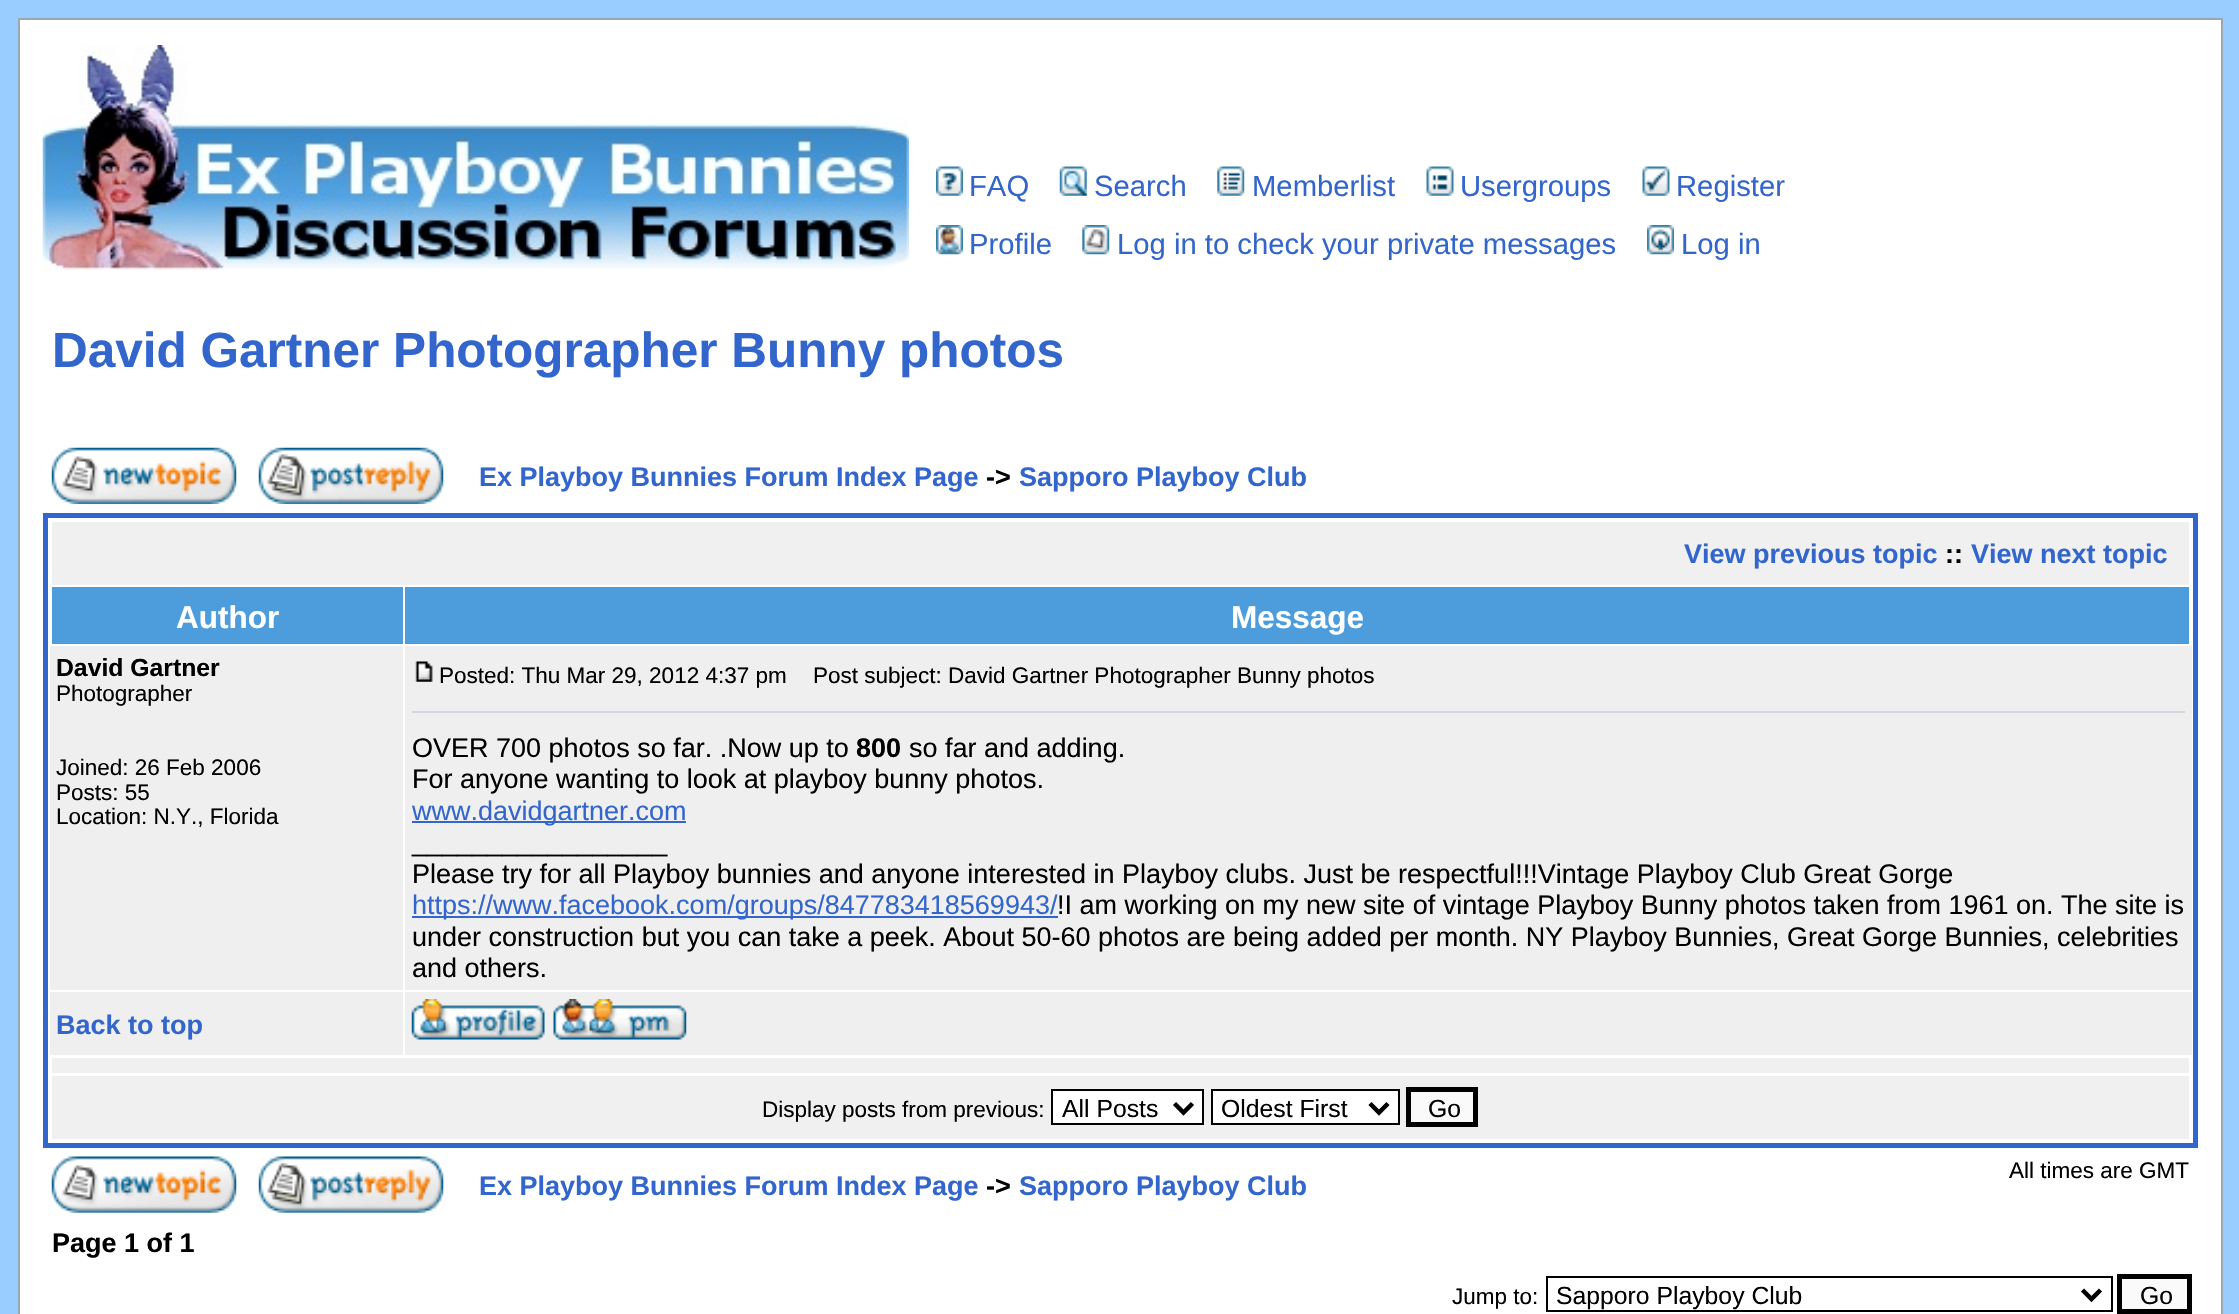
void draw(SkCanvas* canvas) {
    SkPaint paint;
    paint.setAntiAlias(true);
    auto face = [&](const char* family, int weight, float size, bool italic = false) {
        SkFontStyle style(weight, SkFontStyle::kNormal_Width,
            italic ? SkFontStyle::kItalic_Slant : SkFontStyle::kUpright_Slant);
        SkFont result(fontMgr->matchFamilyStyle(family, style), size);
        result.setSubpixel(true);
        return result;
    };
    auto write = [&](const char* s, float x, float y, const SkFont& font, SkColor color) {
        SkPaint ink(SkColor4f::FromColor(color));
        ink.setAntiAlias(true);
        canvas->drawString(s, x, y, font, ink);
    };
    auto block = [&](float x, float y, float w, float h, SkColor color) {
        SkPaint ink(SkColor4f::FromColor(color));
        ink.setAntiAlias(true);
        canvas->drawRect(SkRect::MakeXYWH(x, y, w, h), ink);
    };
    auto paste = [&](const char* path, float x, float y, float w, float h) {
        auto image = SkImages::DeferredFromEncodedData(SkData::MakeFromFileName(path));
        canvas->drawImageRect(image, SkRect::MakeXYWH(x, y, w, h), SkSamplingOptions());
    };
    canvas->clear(SkColorSetRGB(153, 204, 255));
    paint.setColor(SK_ColorWHITE);
    canvas->drawRect(SkRect::MakeXYWH(19, 19, 2203, 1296), paint);
    paint.setStyle(SkPaint::kStroke_Style);
    paint.setStrokeWidth(2);
    paint.setColor(SkColorSetRGB(152, 170, 177));
    canvas->drawRect(SkRect::MakeXYWH(19, 19, 2203, 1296), paint);
    paste("pic1.png", 42, 45, 867, 225);
    paste("pic2.png", 936, 166, 27, 30);
    auto kFont1 = face("Liberation Sans", 400, 29.25f);
    write("FAQ", 969, 196, kFont1, SkColorSetRGB(51, 102, 204));
    paste("pic3.png", 1059, 166, 28, 30);
    write("Search", 1094, 196, kFont1, SkColorSetRGB(51, 102, 204));
    paste("pic4.png", 1217, 166, 28, 30);
    write("Memberlist", 1252, 196, kFont1, SkColorSetRGB(51, 102, 204));
    paste("pic5.png", 1426, 166, 28, 30);
    write("Usergroups", 1460, 196, kFont1, SkColorSetRGB(51, 102, 204));
    paste("pic6.png", 1642, 166, 28, 30);
    write("Register", 1676, 196, kFont1, SkColorSetRGB(51, 102, 204));
    paste("pic7.png", 936, 225, 27, 30);
    write("Profile", 969, 254, kFont1, SkColorSetRGB(51, 102, 204));
    paste("pic8.png", 1082, 225, 28, 30);
    write("Log in to check your private messages", 1117, 254, kFont1, SkColorSetRGB(51, 102, 204));
    paste("pic9.png", 1647, 225, 27, 30);
    write("Log in", 1681, 254, kFont1, SkColorSetRGB(51, 102, 204));
    auto kFont2 = face("Liberation Sans", 700, 49.5f);
    write("David Gartner Photographer Bunny photos", 52, 367, kFont2, SkColorSetRGB(51, 102, 204));
    paste("pic10.png", 51, 447, 186, 57);
    paste("pic11.png", 258, 447, 186, 57);
    auto kFont3 = face("Liberation Sans", 700, 27);
    write("Ex Playboy Bunnies Forum Index Page", 479, 486, kFont3, SkColorSetRGB(51, 102, 204));
    write("->", 986, 486, kFont3, SK_ColorBLACK);
    write("Sapporo Playboy Club", 1019, 486, kFont3, SkColorSetRGB(51, 102, 204));
    paint.setStrokeWidth(5);
    paint.setColor(SkColorSetRGB(51, 102, 204));
    canvas->drawRect(SkRect::MakeXYWH(45.5f, 515.5f, 2150, 630), paint);
    block(52, 522, 2137, 63, SkColorSetRGB(240, 240, 240));
    write("View previous topic", 1684, 563, kFont3, SkColorSetRGB(51, 102, 204));
    write("::", 1945, 563, kFont3, SK_ColorBLACK);
    write("View next topic", 1971, 563, kFont3, SkColorSetRGB(51, 102, 204));
    block(52, 587, 351, 57, SkColorSetRGB(77, 157, 220));
    auto kFont4 = face("Liberation Sans", 700, 31.5f);
    write("Author", 176, 628, kFont4, SK_ColorWHITE);
    block(405, 587, 1784, 57, SkColorSetRGB(77, 157, 220));
    write("Message", 1231, 628, kFont4, SK_ColorWHITE);
    block(50, 646, 353, 344, SkColorSetRGB(239, 239, 239));
    auto kFont5 = face("Liberation Sans", 700, 24.75f);
    write("David Gartner", 56, 676, kFont5, SK_ColorBLACK);
    auto kFont6 = face("Liberation Sans", 400, 22.5f);
    write("Photographer", 56, 701, kFont6, SK_ColorBLACK);
    write("Joined: 26 Feb 2006", 56, 775, kFont6, SK_ColorBLACK);
    write("Posts: 55", 56, 800, kFont6, SK_ColorBLACK);
    write("Location: N.Y., Florida", 56, 824, kFont6, SK_ColorBLACK);
    block(405, 646, 1787, 344, SkColorSetRGB(239, 239, 239));
    paste("pic12.png", 415, 661, 18, 21);
    write("Posted: Thu Mar 29, 2012 4:37 pm", 439, 683, kFont6, SK_ColorBLACK);
    write("Post subject: David Gartner Photographer Bunny photos", 813, 683, kFont6, SK_ColorBLACK);
    block(412, 711, 1773, 2, SkColorSetRGB(209, 215, 220));
    auto kFont7 = face("Liberation Sans", 400, 27);
    write("OVER 700 photos so far. .Now up to", 412, 757, kFont7, SK_ColorBLACK);
    write("800", 856, 757, kFont3, SK_ColorBLACK);
    write("so far and adding.", 909, 757, kFont7, SK_ColorBLACK);
    write("For anyone wanting to look at playboy bunny photos.", 412, 788, kFont7, SK_ColorBLACK);
    block(412, 821, 274, 2, SkColorSetRGB(51, 102, 204));
    write("www.davidgartner.com", 412, 820, kFont7, SkColorSetRGB(51, 102, 204));
    write("_________________", 412, 851, kFont7, SK_ColorBLACK);
    write("Please try for all Playboy bunnies and anyone interested in Playboy clubs. Just be respectful!!!Vintage Playboy Club Great Gorge", 412, 883, kFont7, SK_ColorBLACK);
    block(412, 916, 646, 2, SkColorSetRGB(51, 102, 204));
    write("https://www.facebook.com/groups/847783418569943/", 412, 914, kFont7, SkColorSetRGB(51, 102, 204));
    write("!I am working on my new site of vintage Playboy Bunny photos taken from 1961 on. The site is", 1057, 914, kFont7, SK_ColorBLACK);
    write("under construction but you can take a peek. About 50-60 photos are being added per month. NY Playboy Bunnies, Great Gorge Bunnies, celebrities", 412, 946, kFont7, SK_ColorBLACK);
    write("and others.", 412, 977, kFont7, SK_ColorBLACK);
    block(50, 992, 353, 63, SkColorSetRGB(239, 239, 239));
    write("Back to top", 56, 1034, kFont3, SkColorSetRGB(51, 102, 204));
    block(405, 992, 1787, 63, SkColorSetRGB(239, 239, 239));
    paste("pic13.png", 411, 999, 134, 41);
    paste("pic14.png", 553, 999, 134, 41);
    block(52, 1058, 2137, 15, SkColorSetRGB(240, 240, 240));
    block(52, 1076, 2137, 63, SkColorSetRGB(240, 240, 240));
    write("Display posts from previous:", 762, 1117, kFont6, SK_ColorBLACK);
    paint.setStyle(SkPaint::kFill_Style);
    paint.setColor(SK_ColorWHITE);
    canvas->drawRect(SkRect::MakeXYWH(1052, 1090, 151, 34), paint);
    paint.setStyle(SkPaint::kStroke_Style);
    paint.setStrokeWidth(2);
    paint.setColor(SK_ColorBLACK);
    canvas->drawRect(SkRect::MakeXYWH(1052, 1090, 151, 34), paint);
    paint.setStrokeWidth(4.5f);
    canvas->drawPath(SkPathBuilder().moveTo(1174.5f, 1103.5f).lineTo(1183.5f, 1112.5f).lineTo(1192.5f, 1103.5f).detach(), paint);
    auto kFont8 = face("Liberation Sans", 400, 24.75f);
    write("All Posts", 1062, 1117, kFont8, SK_ColorBLACK);
    paint.setStyle(SkPaint::kFill_Style);
    paint.setColor(SK_ColorWHITE);
    canvas->drawRect(SkRect::MakeXYWH(1212, 1090, 187, 34), paint);
    paint.setStyle(SkPaint::kStroke_Style);
    paint.setStrokeWidth(2);
    paint.setColor(SK_ColorBLACK);
    canvas->drawRect(SkRect::MakeXYWH(1212, 1090, 187, 34), paint);
    paint.setStrokeWidth(4.5f);
    canvas->drawPath(SkPathBuilder().moveTo(1370, 1103.5f).lineTo(1379, 1112.5f).lineTo(1388, 1103.5f).detach(), paint);
    write("Oldest First", 1221, 1117, kFont8, SK_ColorBLACK);
    paint.setStyle(SkPaint::kFill_Style);
    paint.setColor(SkColorSetRGB(250, 250, 250));
    canvas->drawRect(SkRect::MakeXYWH(1408.5f, 1089.5f, 67, 35), paint);
    paint.setStyle(SkPaint::kStroke_Style);
    paint.setStrokeWidth(5);
    paint.setColor(SK_ColorBLACK);
    canvas->drawRect(SkRect::MakeXYWH(1408.5f, 1089.5f, 67, 35), paint);
    write("Go", 1428, 1117, kFont8, SK_ColorBLACK);
    paste("pic15.png", 51, 1156, 186, 57);
    paste("pic16.png", 258, 1156, 186, 57);
    write("All times are GMT", 2009, 1178, kFont6, SK_ColorBLACK);
    write("Ex Playboy Bunnies Forum Index Page", 479, 1195, kFont3, SkColorSetRGB(51, 102, 204));
    write("->", 986, 1195, kFont3, SK_ColorBLACK);
    write("Sapporo Playboy Club", 1019, 1195, kFont3, SkColorSetRGB(51, 102, 204));
    write("Page 1 of 1", 52, 1252, kFont3, SK_ColorBLACK);
    write("Jump to:", 1452, 1304, kFont6, SK_ColorBLACK);
    paint.setStrokeWidth(2);
    canvas->drawRect(SkRect::MakeXYWH(1547, 1277, 565, 34), paint);
    paint.setStrokeWidth(4.5f);
    canvas->drawPath(SkPathBuilder().moveTo(2082.5f, 1290).lineTo(2091.5f, 1299).lineTo(2100.5f, 1290).detach(), paint);
    write("Sapporo Playboy Club", 1556, 1304, kFont8, SK_ColorBLACK);
    paint.setStyle(SkPaint::kFill_Style);
    paint.setColor(SkColorSetRGB(250, 250, 250));
    canvas->drawRect(SkRect::MakeXYWH(2119.5f, 1276.5f, 70, 35), paint);
    paint.setStyle(SkPaint::kStroke_Style);
    paint.setStrokeWidth(5);
    paint.setColor(SK_ColorBLACK);
    canvas->drawRect(SkRect::MakeXYWH(2119.5f, 1276.5f, 70, 35), paint);
    write("Go", 2140, 1304, kFont8, SK_ColorBLACK);
}
